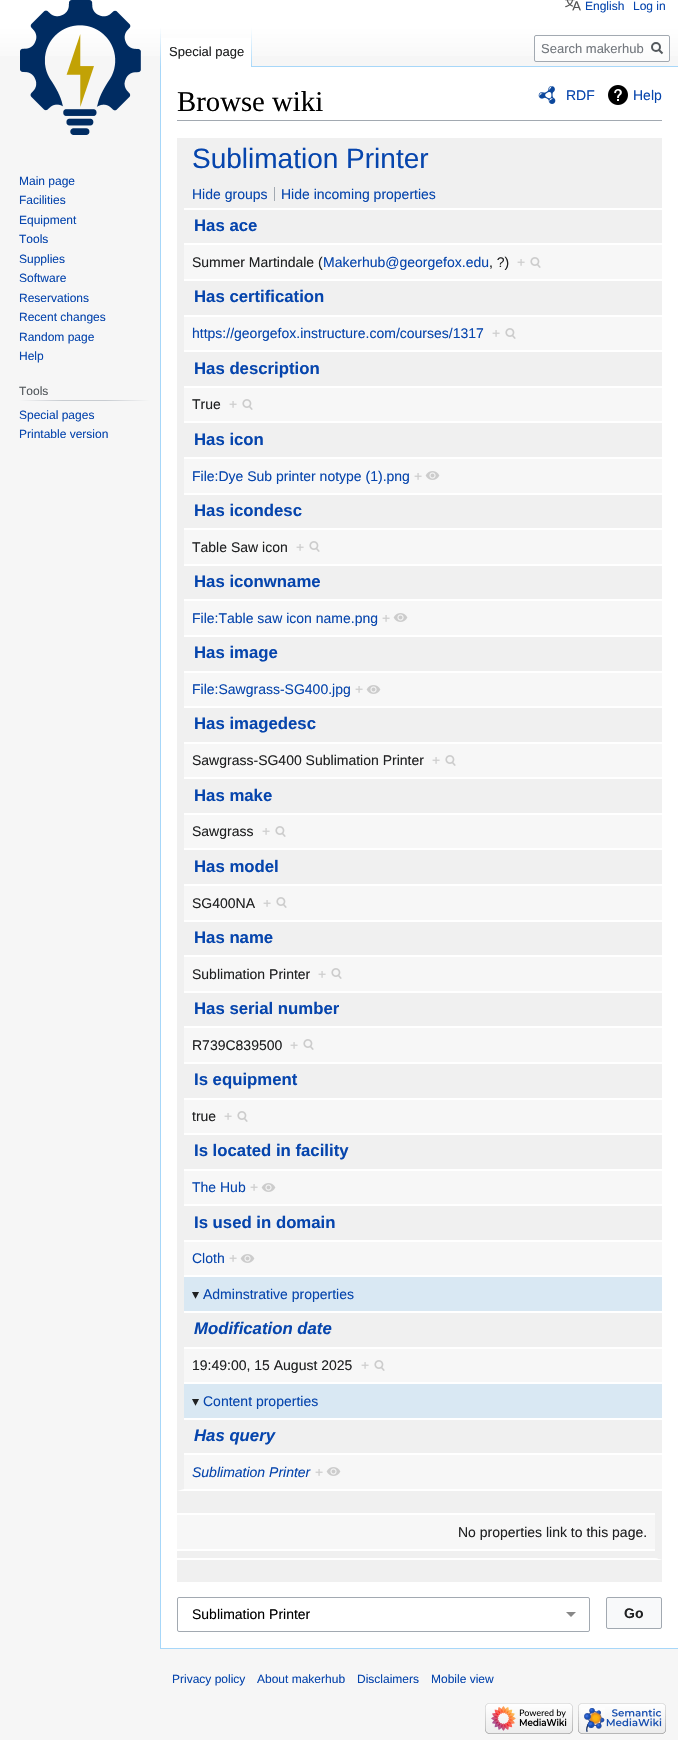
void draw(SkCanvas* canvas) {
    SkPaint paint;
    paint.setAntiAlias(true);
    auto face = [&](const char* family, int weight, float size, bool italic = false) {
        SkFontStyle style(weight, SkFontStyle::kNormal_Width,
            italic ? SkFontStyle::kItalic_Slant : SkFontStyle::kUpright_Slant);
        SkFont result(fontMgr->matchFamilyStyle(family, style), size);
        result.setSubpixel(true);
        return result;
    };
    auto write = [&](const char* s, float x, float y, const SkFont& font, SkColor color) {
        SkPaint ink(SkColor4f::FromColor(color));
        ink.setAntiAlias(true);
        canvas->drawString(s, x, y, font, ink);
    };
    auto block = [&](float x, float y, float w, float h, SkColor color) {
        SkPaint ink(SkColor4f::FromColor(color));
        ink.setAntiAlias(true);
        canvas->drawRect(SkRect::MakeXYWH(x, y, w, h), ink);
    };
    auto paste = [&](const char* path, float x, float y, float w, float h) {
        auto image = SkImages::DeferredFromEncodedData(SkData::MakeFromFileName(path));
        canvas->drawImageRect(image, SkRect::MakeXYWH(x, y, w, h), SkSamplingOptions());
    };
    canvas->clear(SkColorSetRGB(246, 246, 246));
    {
        const SkColor colors[] = {SK_ColorWHITE, SkColorSetRGB(246, 246, 246)};
        const float stops[] = {0.5f, 1};
        const SkPoint ends[] = {{339, -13}, {339, 67}};
        paint.setShader(SkGradientShader::MakeLinear(ends, colors, stops, 2, SkTileMode::kClamp));
        paint.setAlpha(255);
    }
    canvas->drawRect(SkRect::MakeXYWH(0, 0, 678, 56), paint);
    paste("pic1.png", 565, 0, 16, 11);
    auto kFont1 = face("Liberation Sans", 400, 12);
    write("English", 585, 10, kFont1, SkColorSetRGB(6, 69, 173));
    write("Log in", 633, 10, kFont1, SkColorSetRGB(6, 69, 173));
    block(160, 1648, 518, 1, SkColorSetRGB(167, 215, 249));
    block(160, 66, 1, 1583, SkColorSetRGB(167, 215, 249));
    {
        const SkColor colors[] = {SkColorSetARGB(0, 167, 215, 249), SkColorSetRGB(167, 215, 249)};
        const float stops[] = {0, 1};
        const SkPoint ends[] = {{161, 27}, {161, 67}};
        paint.setShader(SkGradientShader::MakeLinear(ends, colors, stops, 2, SkTileMode::kClamp));
        paint.setAlpha(255);
    }
    canvas->drawRect(SkRect::MakeXYWH(160, 27, 1, 40), paint);
    block(161, 38, 90, 29, SK_ColorWHITE);
    {
        const SkColor colors[] = {SK_ColorWHITE, SkColorSetRGB(167, 215, 249)};
        const float stops[] = {0, 1};
        const SkPoint ends[] = {{252, 27}, {252, 67}};
        paint.setShader(SkGradientShader::MakeLinear(ends, colors, stops, 2, SkTileMode::kClamp));
        paint.setAlpha(255);
    }
    canvas->drawRect(SkRect::MakeXYWH(251, 27, 1, 40), paint);
    auto kFont2 = face("Liberation Sans", 400, 13);
    write("Special page", 169, 56, kFont2, SkColorSetRGB(32, 33, 34));
    paint.setShader(nullptr);
    paint.setColor(SkColorSetARGB(128, 255, 255, 255));
    canvas->drawRoundRect(SkRect::MakeXYWH(534.5f, 35.5f, 135, 26), 1.5f, 1.5f, paint);
    paint.setStyle(SkPaint::kStroke_Style);
    paint.setStrokeWidth(1);
    paint.setColor(SkColorSetRGB(162, 169, 177));
    canvas->drawRoundRect(SkRect::MakeXYWH(534.5f, 35.5f, 135, 26), 1.5f, 1.5f, paint);
    write("Search makerhub", 541, 53, kFont2, SkColorSetRGB(114, 119, 125));
    paint.setStrokeWidth(2);
    paint.setColor(SkColorSetRGB(84, 89, 93));
    canvas->drawPath(SkPathBuilder().moveTo(662.5f, 53.5f).lineTo(658.5f, 49.5f).detach(), paint);
    canvas->drawCircle(656, 47, 4, paint);
    paste("pic2.png", 20, 0, 121, 135);
    write("Main page", 19, 185, kFont1, SkColorSetRGB(6, 69, 173));
    write("Facilities", 19, 204, kFont1, SkColorSetRGB(6, 69, 173));
    write("Equipment", 19, 224, kFont1, SkColorSetRGB(6, 69, 173));
    write("Tools", 19, 243, kFont1, SkColorSetRGB(6, 69, 173));
    write("Supplies", 19, 263, kFont1, SkColorSetRGB(6, 69, 173));
    write("Software", 19, 282, kFont1, SkColorSetRGB(6, 69, 173));
    write("Reservations", 19, 302, kFont1, SkColorSetRGB(6, 69, 173));
    write("Recent changes", 19, 321, kFont1, SkColorSetRGB(6, 69, 173));
    write("Random page", 19, 341, kFont1, SkColorSetRGB(6, 69, 173));
    write("Help", 19, 360, kFont1, SkColorSetRGB(6, 69, 173));
    paint.setStyle(SkPaint::kFill_Style);
    {
        const SkColor colors[] = {SkColorSetRGB(246, 246, 246), SkColorSetRGB(200, 204, 209), SkColorSetRGB(200, 204, 209), SkColorSetRGB(246, 246, 246)};
        const float stops[] = {0, 0.33f, 0.66f, 1};
        const SkPoint ends[] = {{19, 401}, {150, 401}};
        paint.setShader(SkGradientShader::MakeLinear(ends, colors, stops, 4, SkTileMode::kClamp));
        paint.setAlpha(255);
    }
    canvas->drawRect(SkRect::MakeXYWH(19, 400, 131, 1), paint);
    write("Tools", 19, 395, kFont1, SkColorSetRGB(84, 89, 93));
    write("Special pages", 19, 419, kFont1, SkColorSetRGB(6, 69, 173));
    write("Printable version", 19, 438, kFont1, SkColorSetRGB(6, 69, 173));
    block(161, 67, 517, 1581, SK_ColorWHITE);
    block(252, 66, 426, 1, SkColorSetRGB(167, 215, 249));
    block(177, 120, 485, 1, SkColorSetRGB(162, 169, 177));
    auto kFont3 = face("Liberation Serif", 400, 28.75f);
    write("Browse wiki", 177, 111, kFont3, SK_ColorBLACK);
    paste("pic3.png", 538, 86, 18, 18);
    auto kFont4 = face("Liberation Sans", 400, 14);
    write("RDF", 566, 100, kFont4, SkColorSetRGB(6, 69, 173));
    paste("pic4.png", 608, 85, 20, 20);
    write("Help", 633, 100, kFont4, SkColorSetRGB(6, 69, 173));
    block(177, 138, 485, 42, SkColorSetRGB(240, 240, 240));
    auto kFont5 = face("Liberation Sans", 400, 28);
    write("Sublimation Printer", 192, 168, kFont5, SkColorSetRGB(6, 69, 173));
    block(177, 180, 485, 28, SkColorSetRGB(240, 240, 240));
    write("Hide groups", 192, 199, kFont4, SkColorSetRGB(6, 69, 173));
    block(274, 187, 1, 14, SkColorSetRGB(162, 169, 177));
    write("Hide incoming properties", 281, 199, kFont4, SkColorSetRGB(6, 69, 173));
    block(177, 208, 7, 1210, SkColorSetRGB(240, 240, 240));
    block(184, 210, 478, 33, SkColorSetRGB(240, 240, 240));
    auto kFont6 = face("Liberation Sans", 700, 16.75f);
    write("Has ace", 194, 231, kFont6, SkColorSetRGB(6, 69, 173));
    block(184, 245, 478, 34, SkColorSetRGB(247, 247, 247));
    write("Summer Martindale (", 192, 267, kFont4, SkColorSetRGB(32, 33, 34));
    write("Makerhub@georgefox.edu", 323, 267, kFont4, SkColorSetRGB(6, 69, 173));
    write(", ?)", 489, 267, kFont4, SkColorSetRGB(32, 33, 34));
    write("+", 517, 267, kFont4, SkColorSetRGB(204, 204, 204));
    paste("pic5.png", 530, 257, 11, 11);
    block(184, 281, 478, 34, SkColorSetRGB(240, 240, 240));
    write("Has certification", 194, 302, kFont6, SkColorSetRGB(6, 69, 173));
    block(184, 317, 478, 33, SkColorSetRGB(247, 247, 247));
    write("https://georgefox.instructure.com/courses/1317", 192, 338, kFont4, SkColorSetRGB(6, 69, 173));
    write("+", 492, 338, kFont4, SkColorSetRGB(204, 204, 204));
    paste("pic5.png", 505, 328, 11, 11);
    block(184, 352, 478, 34, SkColorSetRGB(240, 240, 240));
    write("Has description", 194, 374, kFont6, SkColorSetRGB(6, 69, 173));
    block(184, 388, 478, 33, SkColorSetRGB(247, 247, 247));
    write("True", 192, 409, kFont4, SkColorSetRGB(32, 33, 34));
    write("+", 229, 409, kFont4, SkColorSetRGB(204, 204, 204));
    paste("pic5.png", 242, 399, 11, 11);
    block(184, 423, 478, 34, SkColorSetRGB(240, 240, 240));
    write("Has icon", 194, 445, kFont6, SkColorSetRGB(6, 69, 173));
    block(184, 459, 478, 34, SkColorSetRGB(247, 247, 247));
    write("File:Dye Sub printer notype (1).png", 192, 481, kFont4, SkColorSetRGB(6, 69, 173));
    write("+", 414, 481, kFont4, SkColorSetRGB(204, 204, 204));
    paste("pic6.png", 425, 471, 15, 9);
    block(184, 495, 478, 33, SkColorSetRGB(240, 240, 240));
    write("Has icondesc", 194, 516, kFont6, SkColorSetRGB(6, 69, 173));
    block(184, 530, 478, 34, SkColorSetRGB(247, 247, 247));
    write("Table Saw icon", 192, 552, kFont4, SkColorSetRGB(32, 33, 34));
    write("+", 296, 552, kFont4, SkColorSetRGB(204, 204, 204));
    paste("pic5.png", 309, 541, 11, 11);
    block(184, 566, 478, 33, SkColorSetRGB(240, 240, 240));
    write("Has iconwname", 194, 587, kFont6, SkColorSetRGB(6, 69, 173));
    block(184, 601, 478, 34, SkColorSetRGB(247, 247, 247));
    write("File:Table saw icon name.png", 192, 623, kFont4, SkColorSetRGB(6, 69, 173));
    write("+", 382, 623, kFont4, SkColorSetRGB(204, 204, 204));
    paste("pic6.png", 393, 613, 15, 9);
    block(184, 637, 478, 34, SkColorSetRGB(240, 240, 240));
    write("Has image", 194, 658, kFont6, SkColorSetRGB(6, 69, 173));
    block(184, 673, 478, 33, SkColorSetRGB(247, 247, 247));
    write("File:Sawgrass-SG400.jpg", 192, 694, kFont4, SkColorSetRGB(6, 69, 173));
    write("+", 355, 694, kFont4, SkColorSetRGB(204, 204, 204));
    paste("pic6.png", 366, 685, 15, 9);
    block(184, 708, 478, 34, SkColorSetRGB(240, 240, 240));
    write("Has imagedesc", 194, 729, kFont6, SkColorSetRGB(6, 69, 173));
    block(184, 744, 478, 33, SkColorSetRGB(247, 247, 247));
    write("Sawgrass-SG400 Sublimation Printer", 192, 765, kFont4, SkColorSetRGB(32, 33, 34));
    write("+", 432, 765, kFont4, SkColorSetRGB(204, 204, 204));
    paste("pic5.png", 445, 755, 11, 11);
    block(184, 779, 478, 34, SkColorSetRGB(240, 240, 240));
    write("Has make", 194, 801, kFont6, SkColorSetRGB(6, 69, 173));
    block(184, 815, 478, 33, SkColorSetRGB(247, 247, 247));
    write("Sawgrass", 192, 836, kFont4, SkColorSetRGB(32, 33, 34));
    write("+", 262, 836, kFont4, SkColorSetRGB(204, 204, 204));
    paste("pic5.png", 275, 826, 11, 11);
    block(184, 850, 478, 34, SkColorSetRGB(240, 240, 240));
    write("Has model", 194, 872, kFont6, SkColorSetRGB(6, 69, 173));
    block(184, 886, 478, 34, SkColorSetRGB(247, 247, 247));
    write("SG400NA", 192, 908, kFont4, SkColorSetRGB(32, 33, 34));
    write("+", 263, 908, kFont4, SkColorSetRGB(204, 204, 204));
    paste("pic5.png", 276, 897, 11, 11);
    block(184, 922, 478, 33, SkColorSetRGB(240, 240, 240));
    write("Has name", 194, 943, kFont6, SkColorSetRGB(6, 69, 173));
    block(184, 957, 478, 34, SkColorSetRGB(247, 247, 247));
    write("Sublimation Printer", 192, 979, kFont4, SkColorSetRGB(32, 33, 34));
    write("+", 318, 979, kFont4, SkColorSetRGB(204, 204, 204));
    paste("pic5.png", 331, 968, 11, 11);
    block(184, 993, 478, 33, SkColorSetRGB(240, 240, 240));
    write("Has serial number", 194, 1014, kFont6, SkColorSetRGB(6, 69, 173));
    block(184, 1028, 478, 34, SkColorSetRGB(247, 247, 247));
    write("R739C839500", 192, 1050, kFont4, SkColorSetRGB(32, 33, 34));
    write("+", 290, 1050, kFont4, SkColorSetRGB(204, 204, 204));
    paste("pic5.png", 303, 1039, 11, 11);
    block(184, 1064, 478, 34, SkColorSetRGB(240, 240, 240));
    write("Is equipment", 194, 1085, kFont6, SkColorSetRGB(6, 69, 173));
    block(184, 1100, 478, 33, SkColorSetRGB(247, 247, 247));
    write("true", 192, 1121, kFont4, SkColorSetRGB(32, 33, 34));
    write("+", 224, 1121, kFont4, SkColorSetRGB(204, 204, 204));
    paste("pic5.png", 237, 1111, 11, 11);
    block(184, 1135, 478, 34, SkColorSetRGB(240, 240, 240));
    write("Is located in facility", 194, 1156, kFont6, SkColorSetRGB(6, 69, 173));
    block(184, 1171, 478, 33, SkColorSetRGB(247, 247, 247));
    write("The Hub", 192, 1192, kFont4, SkColorSetRGB(6, 69, 173));
    write("+", 250, 1192, kFont4, SkColorSetRGB(204, 204, 204));
    paste("pic6.png", 261, 1183, 15, 9);
    block(184, 1206, 478, 34, SkColorSetRGB(240, 240, 240));
    write("Is used in domain", 194, 1228, kFont6, SkColorSetRGB(6, 69, 173));
    block(184, 1242, 478, 33, SkColorSetRGB(247, 247, 247));
    write("Cloth", 192, 1263, kFont4, SkColorSetRGB(6, 69, 173));
    write("+", 229, 1263, kFont4, SkColorSetRGB(204, 204, 204));
    paste("pic6.png", 240, 1254, 15, 9);
    block(184, 1277, 478, 34, SkColorSetRGB(217, 232, 243));
    auto kFont7 = face("DejaVu Sans", 400, 14);
    write("▾", 192, 1299, kFont7, SkColorSetRGB(32, 33, 34));
    write("Adminstrative properties", 203, 1299, kFont4, SkColorSetRGB(6, 69, 173));
    block(184, 1313, 478, 34, SkColorSetRGB(240, 240, 240));
    auto kFont8 = face("Liberation Sans", 700, 16.75f, true);
    write("Modification date", 194, 1334, kFont8, SkColorSetRGB(6, 69, 173));
    block(184, 1349, 478, 33, SkColorSetRGB(247, 247, 247));
    write("19:49:00, 15 August 2025", 192, 1370, kFont4, SkColorSetRGB(32, 33, 34));
    write("+", 361, 1370, kFont4, SkColorSetRGB(204, 204, 204));
    paste("pic5.png", 374, 1360, 11, 11);
    block(184, 1384, 478, 34, SkColorSetRGB(217, 232, 243));
    write("▾", 192, 1406, kFont7, SkColorSetRGB(32, 33, 34));
    write("Content properties", 203, 1406, kFont4, SkColorSetRGB(6, 69, 173));
    paint.setShader(nullptr);
    paint.setColor(SkColorSetRGB(240, 240, 240));
    canvas->drawPath(SkPathBuilder().moveTo(177, 1491).lineTo(177, 1418).lineTo(184, 1418).lineTo(184, 1489).close().detach(), paint);
    block(184, 1420, 478, 33, SkColorSetRGB(240, 240, 240));
    write("Has query", 194, 1441, kFont8, SkColorSetRGB(6, 69, 173));
    block(184, 1455, 478, 34, SkColorSetRGB(247, 247, 247));
    auto kFont9 = face("Liberation Sans", 400, 14, true);
    write("Sublimation Printer", 192, 1477, kFont9, SkColorSetRGB(6, 69, 173));
    write("+", 315, 1477, kFont4, SkColorSetRGB(204, 204, 204));
    paste("pic6.png", 326, 1467, 15, 9);
    block(177, 1491, 485, 22, SkColorSetRGB(240, 240, 240));
    canvas->drawPath(SkPathBuilder().moveTo(662, 1513).lineTo(662, 1560).lineTo(655, 1558).lineTo(655, 1513).close().detach(), paint);
    paint.setColor(SK_ColorWHITE);
    canvas->drawPath(SkPathBuilder().moveTo(662, 1560).lineTo(177, 1560).lineTo(177, 1558).lineTo(655, 1558).close().detach(), paint);
    block(177, 1515, 478, 34, SkColorSetRGB(247, 247, 247));
    write("No properties link to this page.", 458, 1537, kFont4, SkColorSetRGB(32, 33, 34));
    block(177, 1551, 478, 7, SkColorSetRGB(240, 240, 240));
    block(177, 1560, 485, 22, SkColorSetRGB(240, 240, 240));
    paint.setColor(SkColorSetRGB(136, 136, 136));
    canvas->drawPath(SkPathBuilder().moveTo(566, 1612).lineTo(571, 1617).lineTo(576, 1612).close().detach(), paint);
    paint.setStyle(SkPaint::kStroke_Style);
    paint.setStrokeWidth(1);
    paint.setColor(SkColorSetRGB(162, 169, 177));
    canvas->drawRoundRect(SkRect::MakeXYWH(177.5f, 1597.5f, 412, 34), 1.5f, 1.5f, paint);
    write("Sublimation Printer", 192, 1619, kFont4, SK_ColorBLACK);
    paint.setStyle(SkPaint::kFill_Style);
    paint.setColor(SkColorSetRGB(248, 249, 250));
    canvas->drawRoundRect(SkRect::MakeXYWH(606.5f, 1597.5f, 55, 31), 1.5f, 1.5f, paint);
    paint.setStyle(SkPaint::kStroke_Style);
    paint.setColor(SkColorSetRGB(162, 169, 177));
    canvas->drawRoundRect(SkRect::MakeXYWH(606.5f, 1597.5f, 55, 31), 1.5f, 1.5f, paint);
    auto kFont10 = face("Liberation Sans", 700, 14);
    write("Go", 624, 1618, kFont10, SkColorSetRGB(32, 33, 34));
    write("Privacy policy", 172, 1683, kFont1, SkColorSetRGB(6, 69, 173));
    write("About makerhub", 257, 1683, kFont1, SkColorSetRGB(6, 69, 173));
    write("Disclaimers", 357, 1683, kFont1, SkColorSetRGB(6, 69, 173));
    write("Mobile view", 431, 1683, kFont1, SkColorSetRGB(6, 69, 173));
    paste("pic7.png", 485, 1703, 88, 31);
    paste("pic8.png", 578, 1703, 88, 31);
}
